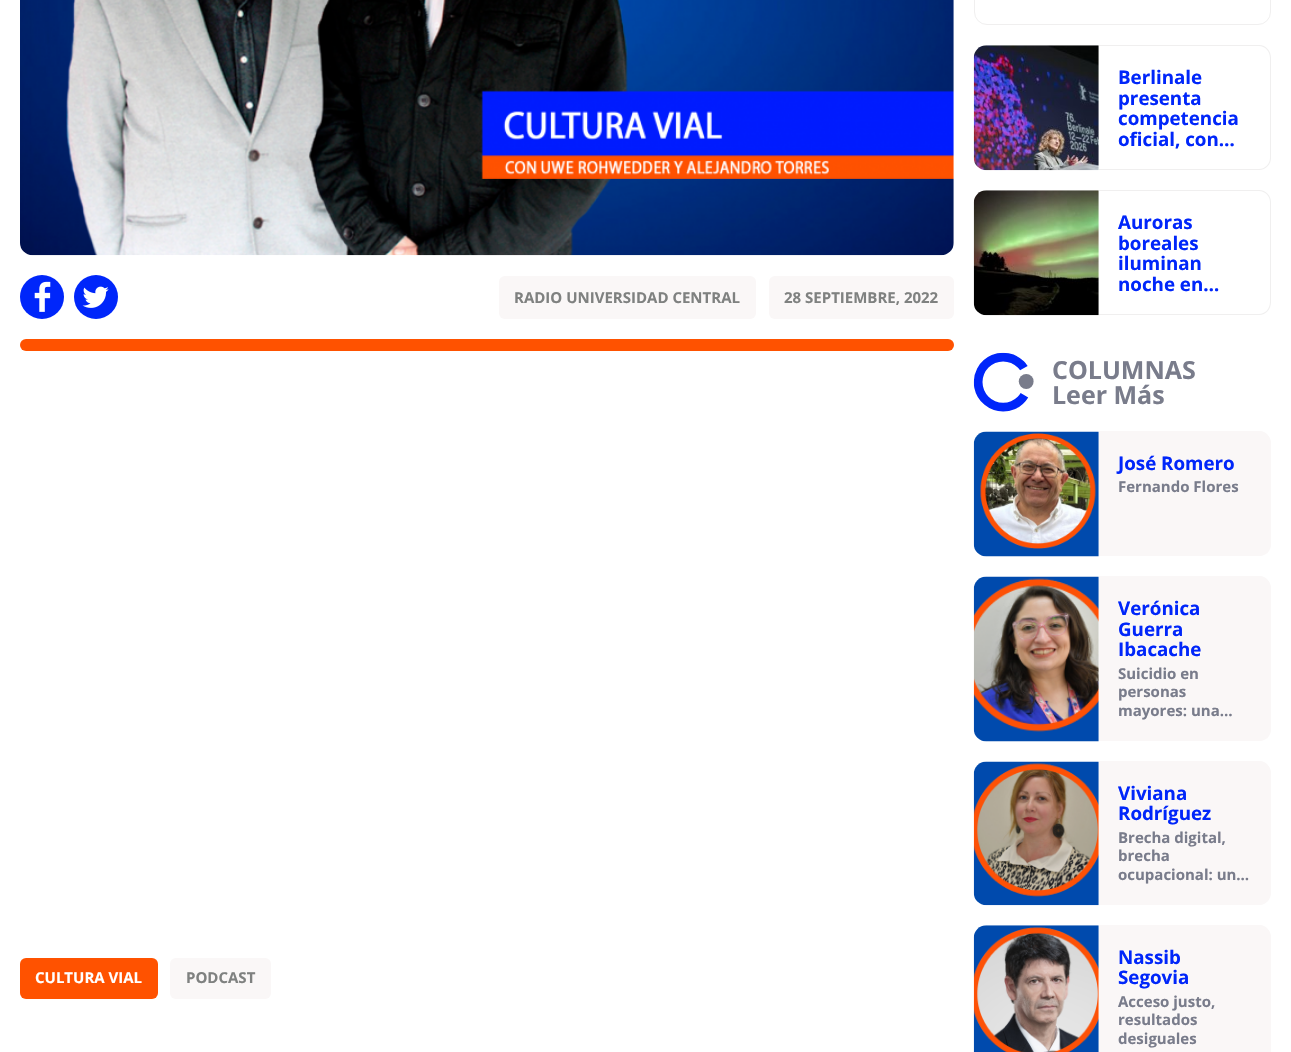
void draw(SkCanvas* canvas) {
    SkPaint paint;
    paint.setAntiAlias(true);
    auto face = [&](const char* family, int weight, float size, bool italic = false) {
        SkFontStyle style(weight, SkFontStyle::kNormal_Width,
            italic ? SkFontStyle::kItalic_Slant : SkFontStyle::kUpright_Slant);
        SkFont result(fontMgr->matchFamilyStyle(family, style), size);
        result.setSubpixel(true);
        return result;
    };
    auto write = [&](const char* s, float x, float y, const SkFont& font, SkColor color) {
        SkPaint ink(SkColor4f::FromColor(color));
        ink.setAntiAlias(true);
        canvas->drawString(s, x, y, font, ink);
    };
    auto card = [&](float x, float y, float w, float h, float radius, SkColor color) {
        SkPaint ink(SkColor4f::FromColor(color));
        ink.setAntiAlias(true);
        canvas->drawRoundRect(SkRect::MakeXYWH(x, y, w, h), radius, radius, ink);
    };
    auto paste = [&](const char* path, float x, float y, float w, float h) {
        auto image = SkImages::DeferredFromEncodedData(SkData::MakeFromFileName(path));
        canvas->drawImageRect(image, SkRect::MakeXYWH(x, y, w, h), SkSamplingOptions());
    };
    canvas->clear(SK_ColorWHITE);
    paste("pic1.png", 20, 0, 934, 256);
    paint.setColor(SkColorSetRGB(0, 38, 250));
    canvas->drawCircle(42, 297, 22, paint);
    paste("pic2.png", 34, 281, 17, 31);
    canvas->drawCircle(96, 297, 22, paint);
    paste("pic3.png", 82, 286, 27, 22);
    card(499, 276, 257, 43, 6, SkColorSetRGB(250, 247, 247));
    auto kFont1 = face("Open Sans", 700, 15);
    write("RADIO UNIVERSIDAD CENTRAL", 514, 303, kFont1, SkColorSetRGB(127, 129, 128));
    card(769, 276, 185, 43, 6, SkColorSetRGB(250, 247, 247));
    write("28 SEPTIEMBRE, 2022", 784, 303, kFont1, SkColorSetRGB(127, 129, 128));
    card(20, 339, 934, 12, 6, SkColorSetRGB(255, 82, 0));
    card(20, 958, 138, 41, 6, SkColorSetRGB(255, 82, 0));
    write("CULTURA VIAL", 35, 983, kFont1, SK_ColorWHITE);
    card(170, 958, 101, 41, 6, SkColorSetRGB(250, 247, 247));
    write("PODCAST", 186, 983, kFont1, SkColorSetRGB(127, 129, 128));
    paint.setStyle(SkPaint::kStroke_Style);
    paint.setStrokeWidth(1);
    paint.setColor(SkColorSetRGB(240, 239, 239));
    canvas->drawRoundRect(SkRect::MakeXYWH(974.5f, -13.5f, 296, 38), 12.5f, 12.5f, paint);
    paste("pic4.png", 973, 45, 126, 126);
    paint.setStyle(SkPaint::kFill_Style);
    canvas->drawPath(SkPathBuilder(SkPathFillType::kEvenOdd).moveTo(1099, 45).lineTo(1259, 45).cubicTo(1266, 45, 1271, 51, 1271, 58).lineTo(1271, 158).cubicTo(1271, 164, 1266, 170, 1259, 170).lineTo(1099, 170).close().moveTo(1099, 46).lineTo(1259, 46).cubicTo(1265, 46, 1270, 51, 1270, 58).lineTo(1270, 158).cubicTo(1270, 164, 1265, 169, 1259, 169).lineTo(1099, 169).close().detach(), paint);
    auto kFont2 = face("Open Sans", 700, 18.75f);
    write("Berlinale", 1118, 84, kFont2, SkColorSetRGB(0, 38, 250));
    write("presenta", 1118, 105, kFont2, SkColorSetRGB(0, 38, 250));
    write("competencia", 1118, 125, kFont2, SkColorSetRGB(0, 38, 250));
    write("oficial, con…", 1118, 146, kFont2, SkColorSetRGB(0, 38, 250));
    paste("pic5.png", 973, 190, 126, 126);
    canvas->drawPath(SkPathBuilder(SkPathFillType::kEvenOdd).moveTo(1099, 190).lineTo(1259, 190).cubicTo(1266, 190, 1271, 196, 1271, 202).lineTo(1271, 302).cubicTo(1271, 309, 1266, 315, 1259, 315).lineTo(1099, 315).close().moveTo(1099, 191).lineTo(1259, 191).cubicTo(1265, 191, 1270, 196, 1270, 202).lineTo(1270, 302).cubicTo(1270, 309, 1265, 314, 1259, 314).lineTo(1099, 314).close().detach(), paint);
    write("Auroras", 1118, 229, kFont2, SkColorSetRGB(0, 38, 250));
    write("boreales", 1118, 250, kFont2, SkColorSetRGB(0, 38, 250));
    write("iluminan", 1118, 270, kFont2, SkColorSetRGB(0, 38, 250));
    write("noche en…", 1118, 291, kFont2, SkColorSetRGB(0, 38, 250));
    paste("pic6.png", 973, 352, 61, 60);
    auto kFont3 = face("Open Sans", 700, 25);
    write("COLUMNAS", 1052, 379, kFont3, SkColorSetRGB(121, 124, 139));
    write("Leer Más", 1052, 404, kFont3, SkColorSetRGB(121, 124, 139));
    paste("pic7.png", 973, 431, 126, 126);
    paint.setColor(SkColorSetRGB(250, 247, 247));
    canvas->drawPath(SkPathBuilder().moveTo(1099, 431).lineTo(1258, 431).cubicTo(1265, 431, 1271, 437, 1271, 444).lineTo(1271, 543).cubicTo(1271, 550, 1265, 556, 1258, 556).lineTo(1099, 556).close().detach(), paint);
    canvas->drawPath(SkPathBuilder(SkPathFillType::kEvenOdd).moveTo(1099, 431).lineTo(1259, 431).cubicTo(1266, 431, 1271, 437, 1271, 444).lineTo(1271, 544).cubicTo(1271, 551, 1266, 556, 1259, 556).lineTo(1099, 556).close().moveTo(1099, 432).lineTo(1259, 432).cubicTo(1265, 432, 1270, 438, 1270, 444).lineTo(1270, 544).cubicTo(1270, 550, 1265, 555, 1259, 555).lineTo(1099, 555).close().detach(), paint);
    write("José Romero", 1118, 470, kFont2, SkColorSetRGB(0, 38, 250));
    write("Fernando Flores", 1118, 492, kFont1, SkColorSetRGB(121, 124, 139));
    paste("pic8.png", 973, 576, 126, 166);
    canvas->drawPath(SkPathBuilder().moveTo(1099, 576).lineTo(1258, 576).cubicTo(1265, 576, 1271, 582, 1271, 589).lineTo(1271, 728).cubicTo(1271, 735, 1265, 741, 1258, 741).lineTo(1099, 741).close().detach(), paint);
    canvas->drawPath(SkPathBuilder(SkPathFillType::kEvenOdd).moveTo(1099, 576).lineTo(1259, 576).cubicTo(1266, 576, 1271, 582, 1271, 589).lineTo(1271, 729).cubicTo(1271, 736, 1266, 741, 1259, 741).lineTo(1099, 741).close().moveTo(1099, 578).lineTo(1259, 578).cubicTo(1265, 578, 1270, 583, 1270, 589).lineTo(1270, 729).cubicTo(1270, 735, 1265, 740, 1259, 740).lineTo(1099, 740).close().detach(), paint);
    write("Verónica", 1118, 615, kFont2, SkColorSetRGB(0, 38, 250));
    write("Guerra", 1118, 636, kFont2, SkColorSetRGB(0, 38, 250));
    write("Ibacache", 1118, 656, kFont2, SkColorSetRGB(0, 38, 250));
    write("Suicidio en", 1118, 679, kFont1, SkColorSetRGB(121, 124, 139));
    write("personas", 1118, 697, kFont1, SkColorSetRGB(121, 124, 139));
    write("mayores: una…", 1118, 716, kFont1, SkColorSetRGB(121, 124, 139));
    paste("pic9.png", 973, 761, 126, 145);
    canvas->drawPath(SkPathBuilder().moveTo(1099, 761).lineTo(1258, 761).cubicTo(1265, 761, 1271, 767, 1271, 774).lineTo(1271, 892).cubicTo(1271, 899, 1265, 905, 1258, 905).lineTo(1099, 905).close().detach(), paint);
    canvas->drawPath(SkPathBuilder(SkPathFillType::kEvenOdd).moveTo(1099, 761).lineTo(1259, 761).cubicTo(1266, 761, 1271, 767, 1271, 774).lineTo(1271, 892).cubicTo(1271, 899, 1266, 905, 1259, 905).lineTo(1099, 905).close().moveTo(1099, 762).lineTo(1259, 762).cubicTo(1265, 762, 1270, 768, 1270, 774).lineTo(1270, 892).cubicTo(1270, 899, 1265, 904, 1259, 904).lineTo(1099, 904).close().detach(), paint);
    write("Viviana", 1118, 800, kFont2, SkColorSetRGB(0, 38, 250));
    write("Rodríguez", 1118, 820, kFont2, SkColorSetRGB(0, 38, 250));
    write("Brecha digital,", 1118, 843, kFont1, SkColorSetRGB(121, 124, 139));
    write("brecha", 1118, 861, kFont1, SkColorSetRGB(121, 124, 139));
    write("ocupacional: un…", 1118, 880, kFont1, SkColorSetRGB(121, 124, 139));
    paste("pic10.png", 973, 925, 126, 127);
    canvas->drawPath(SkPathBuilder().moveTo(1099, 925).lineTo(1258, 925).cubicTo(1265, 925, 1271, 931, 1271, 938).lineTo(1271, 1052).cubicTo(1271, 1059, 1265, 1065, 1258, 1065).lineTo(1099, 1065).close().detach(), paint);
    canvas->drawPath(SkPathBuilder(SkPathFillType::kEvenOdd).moveTo(1099, 925).lineTo(1259, 925).cubicTo(1266, 925, 1271, 931, 1271, 938).lineTo(1271, 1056).cubicTo(1271, 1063, 1266, 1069, 1259, 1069).lineTo(1099, 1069).close().moveTo(1099, 926).lineTo(1259, 926).cubicTo(1265, 926, 1270, 931, 1270, 938).lineTo(1270, 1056).cubicTo(1270, 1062, 1265, 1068, 1259, 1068).lineTo(1099, 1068).close().detach(), paint);
    write("Nassib", 1118, 964, kFont2, SkColorSetRGB(0, 38, 250));
    write("Segovia", 1118, 984, kFont2, SkColorSetRGB(0, 38, 250));
    write("Acceso justo,", 1118, 1007, kFont1, SkColorSetRGB(121, 124, 139));
    write("resultados", 1118, 1025, kFont1, SkColorSetRGB(121, 124, 139));
    write("desiguales", 1118, 1044, kFont1, SkColorSetRGB(121, 124, 139));
}
